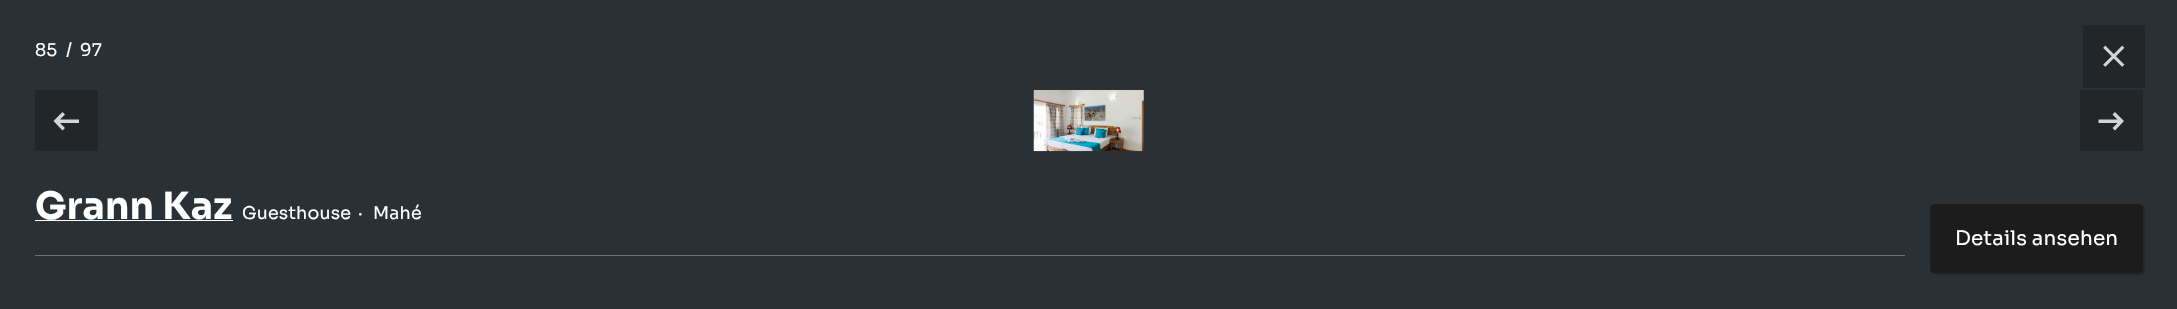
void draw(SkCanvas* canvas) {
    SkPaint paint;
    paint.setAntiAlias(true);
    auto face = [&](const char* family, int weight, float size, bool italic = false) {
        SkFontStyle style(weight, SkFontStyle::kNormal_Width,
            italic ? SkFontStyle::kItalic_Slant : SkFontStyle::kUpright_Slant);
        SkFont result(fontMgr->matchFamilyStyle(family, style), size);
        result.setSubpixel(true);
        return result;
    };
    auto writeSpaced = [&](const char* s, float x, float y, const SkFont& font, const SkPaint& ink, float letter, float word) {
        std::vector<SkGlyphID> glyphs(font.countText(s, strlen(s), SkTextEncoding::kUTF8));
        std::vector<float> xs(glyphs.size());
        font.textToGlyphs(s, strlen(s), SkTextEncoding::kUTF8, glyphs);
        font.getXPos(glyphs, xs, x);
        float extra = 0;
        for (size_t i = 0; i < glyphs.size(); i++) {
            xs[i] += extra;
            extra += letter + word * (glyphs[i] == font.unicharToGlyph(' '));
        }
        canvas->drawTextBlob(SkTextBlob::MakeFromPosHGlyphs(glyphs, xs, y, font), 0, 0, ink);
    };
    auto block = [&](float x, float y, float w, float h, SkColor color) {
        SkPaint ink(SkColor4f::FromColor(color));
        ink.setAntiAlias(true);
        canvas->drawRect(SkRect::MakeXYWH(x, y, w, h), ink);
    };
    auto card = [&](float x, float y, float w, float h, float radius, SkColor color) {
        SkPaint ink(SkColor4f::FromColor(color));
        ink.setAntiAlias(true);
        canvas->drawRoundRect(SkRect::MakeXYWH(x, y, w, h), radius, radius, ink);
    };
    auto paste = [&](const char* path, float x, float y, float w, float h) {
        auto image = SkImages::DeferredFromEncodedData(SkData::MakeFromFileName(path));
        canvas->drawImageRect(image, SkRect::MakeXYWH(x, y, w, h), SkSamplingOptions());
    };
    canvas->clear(SkColorSetRGB(41, 49, 55));
    auto kFont1 = face("Sora", 400, 17.5f);
    paint.setColor(SK_ColorWHITE);
    writeSpaced("85", 35, 56, kFont1, paint, 0.2f, 0);
    writeSpaced("/", 66, 56, kFont1, paint, 0.2f, 0);
    writeSpaced("97", 80, 56, kFont1, paint, 0.2f, 0);
    block(2083, 25, 62, 63, SkColorSetRGB(34, 38, 40));
    paste("pic1.png", 2103, 45, 22, 22);
    block(35, 90, 63, 61, SkColorSetRGB(34, 38, 40));
    paint.setColor(SkColorSetRGB(211, 212, 212));
    canvas->drawPath(SkPathBuilder().moveTo(65, 128).lineTo(62.5f, 130.5f).lineTo(53.5f, 121).lineTo(62.5f, 112).lineTo(65, 114.5f).lineTo(60, 119.5f).lineTo(79, 119.5f).lineTo(79, 123).lineTo(60, 123).close().detach(), paint);
    paste("pic2.png", 1033, 90, 111, 62);
    block(2080, 90, 63, 61, SkColorSetRGB(34, 38, 40));
    canvas->drawPath(SkPathBuilder().moveTo(2117.5f, 123).lineTo(2112.5f, 128).lineTo(2115, 130.5f).lineTo(2124, 121).lineTo(2115, 112).lineTo(2112.5f, 114.5f).lineTo(2117.5f, 119.5f).lineTo(2098.5f, 119.5f).lineTo(2098.5f, 123).close().detach(), paint);
    block(35, 255, 1870, 1, SkColorSetRGB(112, 112, 112));
    auto kFont2 = face("Sora", 700, 37.5f);
    paint.setColor(SK_ColorWHITE);
    writeSpaced("Grann Kaz", 35, 219, kFont2, paint, 0.2f, 0);
    block(35, 220, 198, 1, SK_ColorWHITE);
    writeSpaced("Guesthouse", 242, 219, kFont1, paint, 0.2f, 0);
    writeSpaced("·", 358, 219, kFont1, paint, 0.2f, 0);
    writeSpaced("Mahé", 373, 219, kFont1, paint, 0.2f, 0);
    paint.setColor(SkColorSetARGB(51, 0, 0, 0));
    paint.setMaskFilter(SkMaskFilter::MakeBlur(kNormal_SkBlurStyle, 1));
    canvas->drawRoundRect(SkRect::MakeXYWH(1933, 206, 212, 69), 4, 4, paint);
    paint.setMaskFilter(nullptr);
    card(1930, 204, 213, 69, 4, SkColorSetRGB(28, 28, 28));
    auto kFont3 = face("Sora", 400, 20);
    paint.setColor(SK_ColorWHITE);
    writeSpaced("Details ansehen", 1955, 245, kFont3, paint, 0.2f, 0);
}
